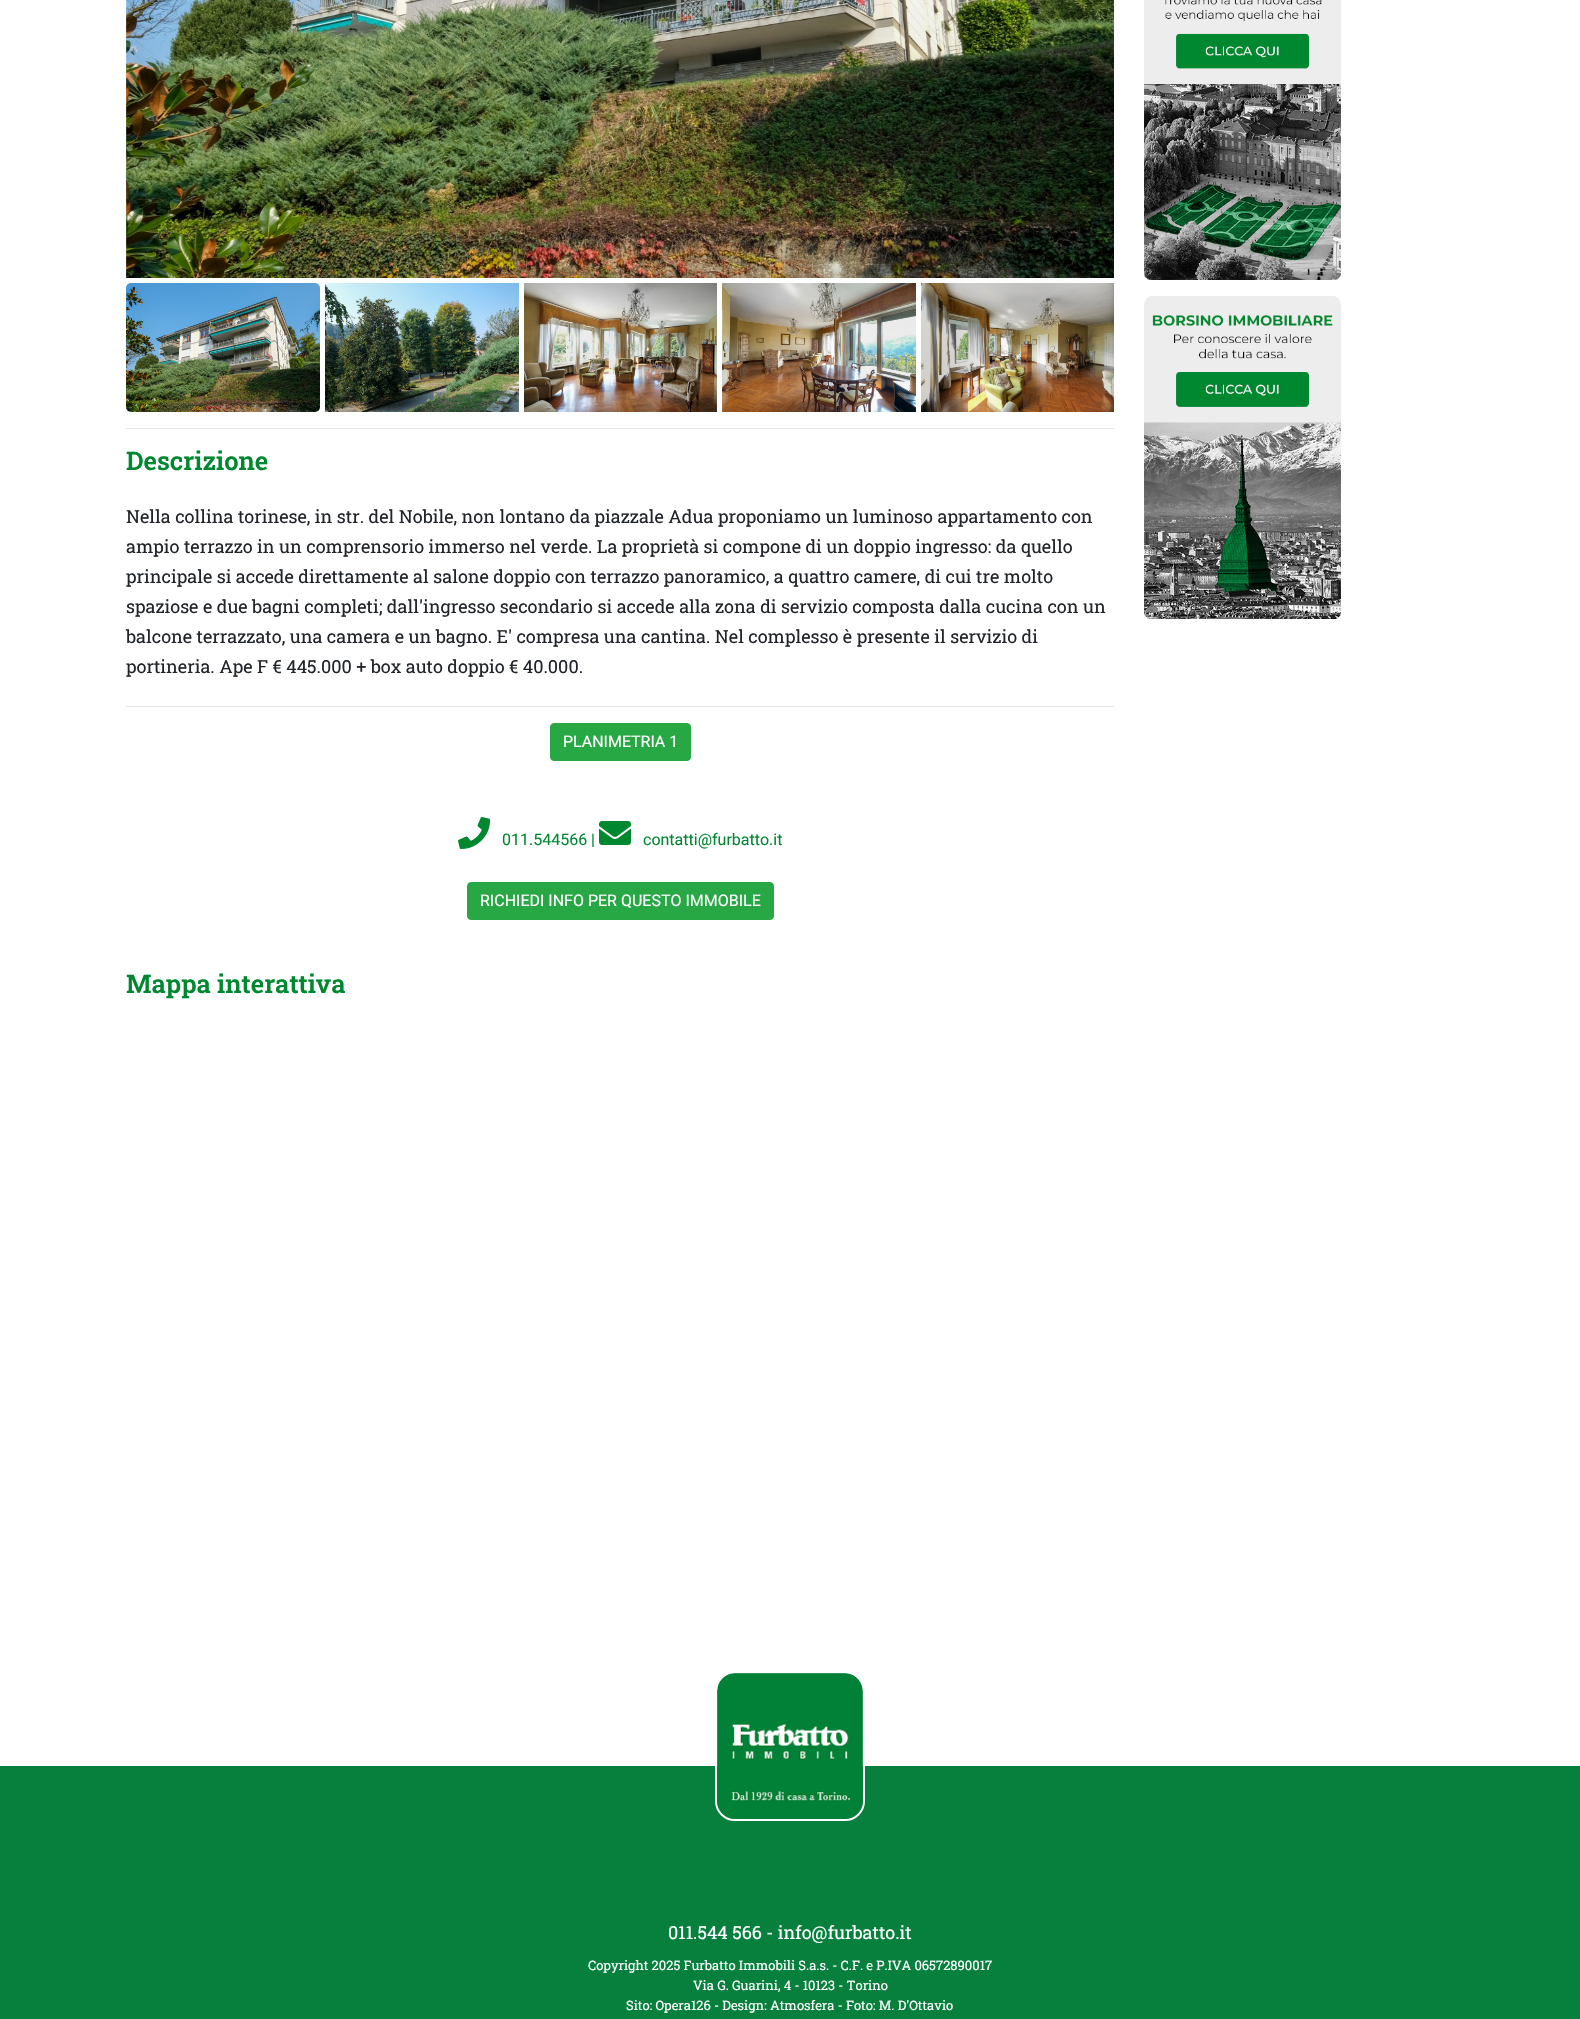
void draw(SkCanvas* canvas) {
    SkPaint paint;
    paint.setAntiAlias(true);
    auto face = [&](const char* family, int weight, float size, bool italic = false) {
        SkFontStyle style(weight, SkFontStyle::kNormal_Width,
            italic ? SkFontStyle::kItalic_Slant : SkFontStyle::kUpright_Slant);
        SkFont result(fontMgr->matchFamilyStyle(family, style), size);
        result.setSubpixel(true);
        return result;
    };
    auto write = [&](const char* s, float x, float y, const SkFont& font, SkColor color) {
        SkPaint ink(SkColor4f::FromColor(color));
        ink.setAntiAlias(true);
        canvas->drawString(s, x, y, font, ink);
    };
    auto block = [&](float x, float y, float w, float h, SkColor color) {
        SkPaint ink(SkColor4f::FromColor(color));
        ink.setAntiAlias(true);
        canvas->drawRect(SkRect::MakeXYWH(x, y, w, h), ink);
    };
    auto paste = [&](const char* path, float x, float y, float w, float h) {
        auto image = SkImages::DeferredFromEncodedData(SkData::MakeFromFileName(path));
        canvas->drawImageRect(image, SkRect::MakeXYWH(x, y, w, h), SkSamplingOptions());
    };
    canvas->clear(SK_ColorWHITE);
    paste("pic1.png", 1144, 0, 197, 280);
    paste("pic2.png", 1144, 296, 197, 323);
    paste("pic3.png", 126, 0, 988, 278);
    paste("pic4.png", 126, 283, 194, 129);
    paste("pic5.png", 325, 283, 194, 129);
    paste("pic6.png", 524, 283, 193, 129);
    paste("pic7.png", 722, 283, 194, 129);
    paste("pic8.png", 921, 283, 193, 129);
    block(126, 428, 988, 1, SkColorSetRGB(230, 230, 230));
    auto kFont1 = face("Roboto Slab", 600, 25.5f);
    write("Descrizione", 126, 470, kFont1, SkColorSetRGB(0, 136, 48));
    auto kFont2 = face("Roboto Slab", 400, 18);
    write("Nella collina torinese, in str. del Nobile, non lontano da piazzale Adua proponiamo un luminoso appartamento con", 126, 523, kFont2, SkColorSetRGB(33, 37, 41));
    write("ampio terrazzo in un comprensorio immerso nel verde. La proprietà si compone di un doppio ingresso: da quello", 126, 553, kFont2, SkColorSetRGB(33, 37, 41));
    write("principale si accede direttamente al salone doppio con terrazzo panoramico, a quattro camere, di cui tre molto", 126, 583, kFont2, SkColorSetRGB(33, 37, 41));
    write("spaziose e due bagni completi; dall'ingresso secondario si accede alla zona di servizio composta dalla cucina con un", 126, 613, kFont2, SkColorSetRGB(33, 37, 41));
    write("balcone terrazzato, una camera e un bagno. E' compresa una cantina. Nel complesso è presente il servizio di", 126, 643, kFont2, SkColorSetRGB(33, 37, 41));
    write("portineria. Ape F € 445.000 + box auto doppio € 40.000.", 126, 673, kFont2, SkColorSetRGB(33, 37, 41));
    block(126, 706, 988, 1, SkColorSetRGB(230, 230, 230));
    paint.setColor(SkColorSetRGB(40, 167, 69));
    canvas->drawRoundRect(SkRect::MakeXYWH(550.5f, 723.5f, 140, 37), 3.5f, 3.5f, paint);
    paint.setStyle(SkPaint::kStroke_Style);
    paint.setStrokeWidth(1);
    canvas->drawRoundRect(SkRect::MakeXYWH(550.5f, 723.5f, 140, 37), 3.5f, 3.5f, paint);
    auto kFont3 = face("Roboto", 400, 16);
    write("PLANIMETRIA 1", 563, 747, kFont3, SK_ColorWHITE);
    paste("pic9.png", 458, 817, 33, 32);
    write("011.544566 |", 502, 845, kFont3, SkColorSetRGB(0, 136, 48));
    paste("pic10.png", 599, 821, 32, 24);
    write("contatti@furbatto.it", 643, 845, kFont3, SkColorSetRGB(0, 136, 48));
    paint.setStyle(SkPaint::kFill_Style);
    canvas->drawRoundRect(SkRect::MakeXYWH(467.5f, 882.5f, 306, 37), 3.5f, 3.5f, paint);
    paint.setStyle(SkPaint::kStroke_Style);
    canvas->drawRoundRect(SkRect::MakeXYWH(467.5f, 882.5f, 306, 37), 3.5f, 3.5f, paint);
    write("RICHIEDI INFO PER QUESTO IMMOBILE", 480, 906, kFont3, SK_ColorWHITE);
    write("Mappa interattiva", 126, 993, kFont1, SkColorSetRGB(0, 136, 48));
    block(0, 1766, 1580, 253, SkColorSetRGB(7, 128, 62));
    paint.setStrokeWidth(2);
    paint.setColor(SK_ColorWHITE);
    canvas->drawRoundRect(SkRect::MakeXYWH(716, 1672, 148, 148), 19, 19, paint);
    paste("pic11.png", 717, 1673, 146, 146);
    write("011.544 566 - info@furbatto.it", 668, 1939, kFont2, SK_ColorWHITE);
    auto kFont4 = face("Roboto Slab", 400, 13);
    write("Copyright 2025 Furbatto Immobili S.a.s. - C.F. e P.IVA 06572890017", 588, 1970, kFont4, SK_ColorWHITE);
    write("Via G. Guarini, 4 - 10123 - Torino", 693, 1990, kFont4, SK_ColorWHITE);
    write("Sito: Opera126 - Design: Atmosfera - Foto: M. D'Ottavio", 626, 2010, kFont4, SK_ColorWHITE);
}
